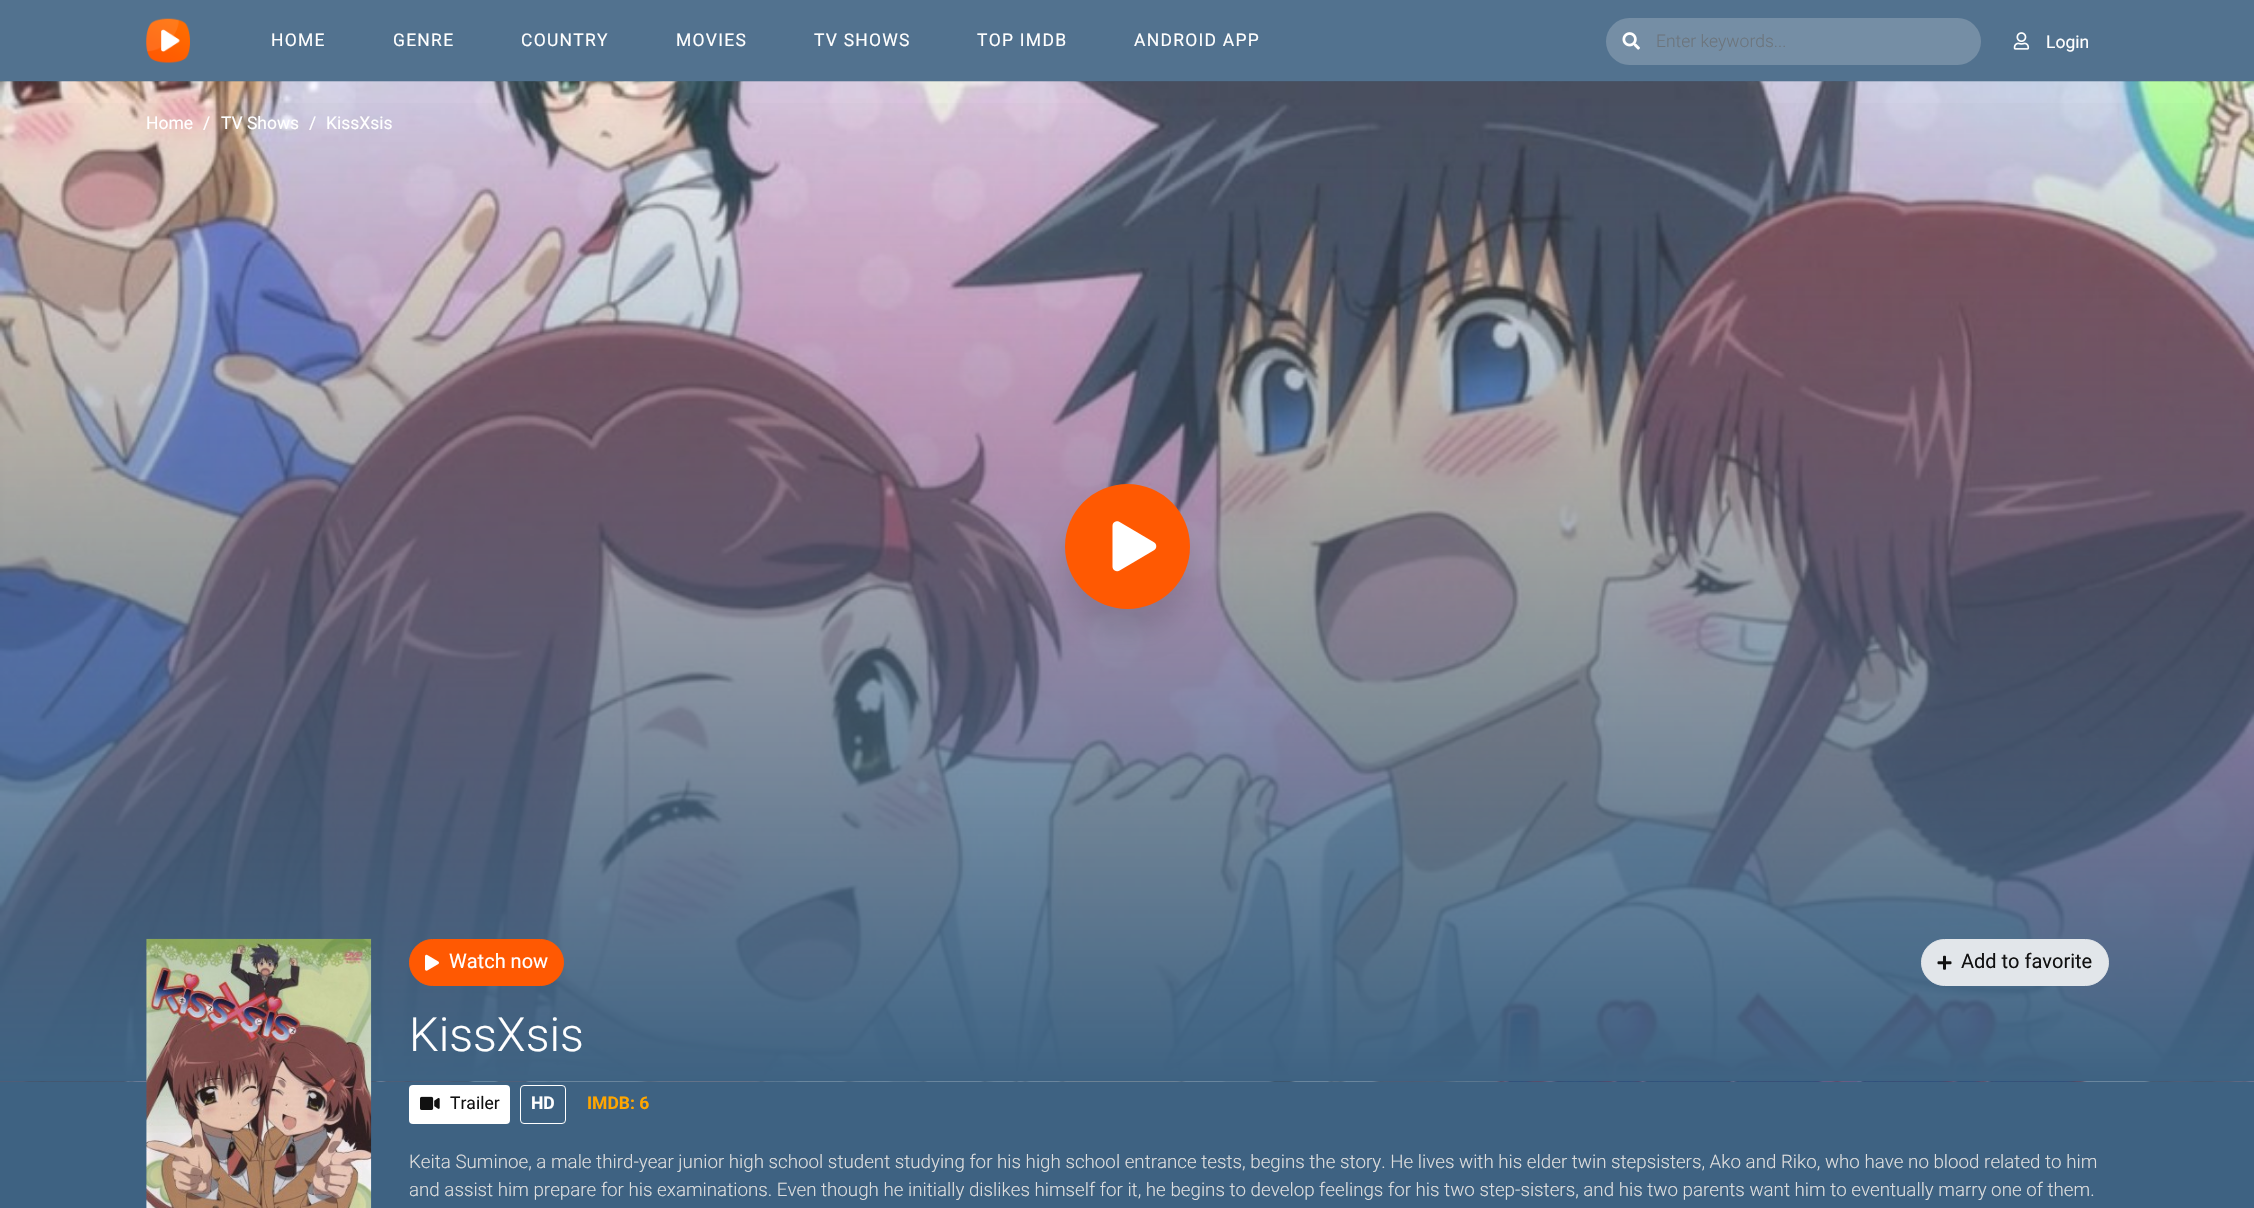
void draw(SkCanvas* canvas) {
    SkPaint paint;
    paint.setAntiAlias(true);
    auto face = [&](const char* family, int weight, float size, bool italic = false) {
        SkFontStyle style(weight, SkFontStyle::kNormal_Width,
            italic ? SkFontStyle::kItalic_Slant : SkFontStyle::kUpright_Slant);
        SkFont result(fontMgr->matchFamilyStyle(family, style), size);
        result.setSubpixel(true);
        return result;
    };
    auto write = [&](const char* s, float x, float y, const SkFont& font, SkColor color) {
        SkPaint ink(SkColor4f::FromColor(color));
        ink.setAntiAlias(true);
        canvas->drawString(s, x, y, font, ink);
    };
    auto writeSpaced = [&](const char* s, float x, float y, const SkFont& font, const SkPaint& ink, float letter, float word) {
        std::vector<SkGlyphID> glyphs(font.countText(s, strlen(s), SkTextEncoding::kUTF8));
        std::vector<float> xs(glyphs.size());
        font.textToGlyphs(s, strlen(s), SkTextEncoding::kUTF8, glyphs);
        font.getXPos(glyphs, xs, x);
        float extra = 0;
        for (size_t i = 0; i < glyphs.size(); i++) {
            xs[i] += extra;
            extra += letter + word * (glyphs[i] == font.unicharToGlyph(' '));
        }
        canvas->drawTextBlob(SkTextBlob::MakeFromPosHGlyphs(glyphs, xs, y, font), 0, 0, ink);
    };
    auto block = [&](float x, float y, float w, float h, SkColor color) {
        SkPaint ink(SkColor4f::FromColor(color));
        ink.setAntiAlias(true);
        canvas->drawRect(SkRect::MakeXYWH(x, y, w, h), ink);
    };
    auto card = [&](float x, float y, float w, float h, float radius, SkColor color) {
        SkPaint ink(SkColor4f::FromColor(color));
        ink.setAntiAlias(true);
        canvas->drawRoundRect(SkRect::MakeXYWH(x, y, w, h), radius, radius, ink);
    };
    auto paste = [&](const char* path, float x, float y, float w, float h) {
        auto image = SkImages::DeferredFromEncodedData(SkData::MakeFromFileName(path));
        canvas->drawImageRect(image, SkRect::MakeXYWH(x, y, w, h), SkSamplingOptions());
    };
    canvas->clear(SkColorSetRGB(62, 98, 130));
    block(0, 0, 2254, 81, SkColorSetRGB(82, 114, 143));
    paste("pic1.png", 146, 18, 44, 45);
    auto kFont1 = face("Roboto", 400, 17.5f);
    paint.setColor(SK_ColorWHITE);
    writeSpaced("HOME", 271, 46, kFont1, paint, 1.25f, 0);
    writeSpaced("GENRE", 393, 46, kFont1, paint, 1.25f, 0);
    writeSpaced("COUNTRY", 521, 46, kFont1, paint, 1.25f, 0);
    writeSpaced("MOVIES", 676, 46, kFont1, paint, 1.25f, 0);
    writeSpaced("TV SHOWS", 814, 46, kFont1, paint, 1.25f, 0);
    writeSpaced("TOP IMDB", 977, 46, kFont1, paint, 1.25f, 0);
    writeSpaced("ANDROID APP", 1134, 46, kFont1, paint, 1.25f, 0);
    card(1606, 18, 375, 47, 23.5f, SkColorSetRGB(117, 142, 165));
    paste("pic2.png", 1622, 32, 18, 18);
    auto kFont2 = face("Roboto", 300, 17.5f);
    write("Enter keywords...", 1656, 47, kFont2, SkColorSetRGB(108, 117, 125));
    paste("pic3.png", 2013, 32, 17, 18);
    write("Login", 2046, 48, kFont1, SK_ColorWHITE);
    paste("pic4.png", 0, 81, 2254, 1001);
    {
        const SkColor colors[] = {SkColorSetRGB(62, 98, 130), SkColorSetARGB(0, 62, 98, 130)};
        const float stops[] = {0, 1};
        const SkPoint ends[] = {{1128, 1081}, {1128, 81}};
        paint.setShader(SkGradientShader::MakeLinear(ends, colors, stops, 2, SkTileMode::kClamp));
        paint.setAlpha(255);
    }
    canvas->drawRect(SkRect::MakeXYWH(0, 103, 2254, 978), paint);
    write("Home", 146, 129, kFont1, SK_ColorWHITE);
    write("/", 203, 129, kFont1, SK_ColorWHITE);
    write("TV Shows", 221, 129, kFont1, SK_ColorWHITE);
    write("/", 309, 129, kFont1, SK_ColorWHITE);
    write("KissXsis", 326, 129, kFont1, SK_ColorWHITE);
    paint.setShader(nullptr);
    paint.setColor(SkColorSetARGB(26, 0, 0, 0));
    paint.setMaskFilter(SkMaskFilter::MakeBlur(kNormal_SkBlurStyle, 12.5f));
    canvas->drawRoundRect(SkRect::MakeXYWH(1065, 509, 125, 125), 62.5f, 62.5f, paint);
    paint.setMaskFilter(nullptr);
    paint.setColor(SkColorSetRGB(255, 89, 2));
    canvas->drawCircle(1127.5f, 546.5f, 62.5f, paint);
    paste("pic5.png", 1112, 521, 45, 51);
    paste("pic6.png", 146, 938, 226, 270);
    canvas->drawRoundRect(SkRect::MakeXYWH(409.5f, 939.5f, 154, 46), 23, 23, paint);
    paint.setStyle(SkPaint::kStroke_Style);
    paint.setStrokeWidth(1);
    canvas->drawRoundRect(SkRect::MakeXYWH(409.5f, 939.5f, 154, 46), 23, 23, paint);
    paste("pic7.png", 425, 954, 14, 17);
    auto kFont3 = face("Roboto", 400, 20);
    write("Watch now", 449, 968, kFont3, SK_ColorWHITE);
    paint.setStyle(SkPaint::kFill_Style);
    paint.setColor(SkColorSetRGB(226, 230, 234));
    canvas->drawRoundRect(SkRect::MakeXYWH(1921.5f, 939.5f, 187, 46), 23, 23, paint);
    paint.setStyle(SkPaint::kStroke_Style);
    canvas->drawRoundRect(SkRect::MakeXYWH(1921.5f, 939.5f, 187, 46), 23, 23, paint);
    paste("pic8.png", 1937, 955, 15, 15);
    write("Add to favorite", 1961, 968, kFont3, SkColorSetRGB(17, 17, 17));
    auto kFont4 = face("Roboto", 300, 47);
    write("KissXsis", 409, 1051, kFont4, SK_ColorWHITE);
    card(409, 1085, 101, 39, 4, SK_ColorWHITE);
    paste("pic9.png", 420, 1096, 20, 14);
    write("Trailer", 450, 1109, kFont1, SkColorSetRGB(17, 17, 17));
    paint.setColor(SK_ColorWHITE);
    canvas->drawRoundRect(SkRect::MakeXYWH(520.5f, 1085.5f, 45, 38), 3.5f, 3.5f, paint);
    auto kFont5 = face("Roboto", 700, 17.5f);
    write("HD", 531, 1109, kFont5, SK_ColorWHITE);
    write("IMDB: 6", 587, 1109, kFont5, SkColorSetRGB(255, 166, 0));
    auto kFont6 = face("Roboto", 300, 18.75f);
    write("Keita Suminoe, a male third-year junior high school student studying for his high school entrance tests, begins the story. He lives with his elder twin stepsisters, Ako and Riko, who have no blood related to him", 409, 1168, kFont6, SkColorSetRGB(221, 221, 221));
    write("and assist him prepare for his examinations. Even though he initially dislikes himself for it, he begins to develop feelings for his two step-sisters, and his two parents want him to eventually marry one of them.", 409, 1196, kFont6, SkColorSetRGB(221, 221, 221));
}
